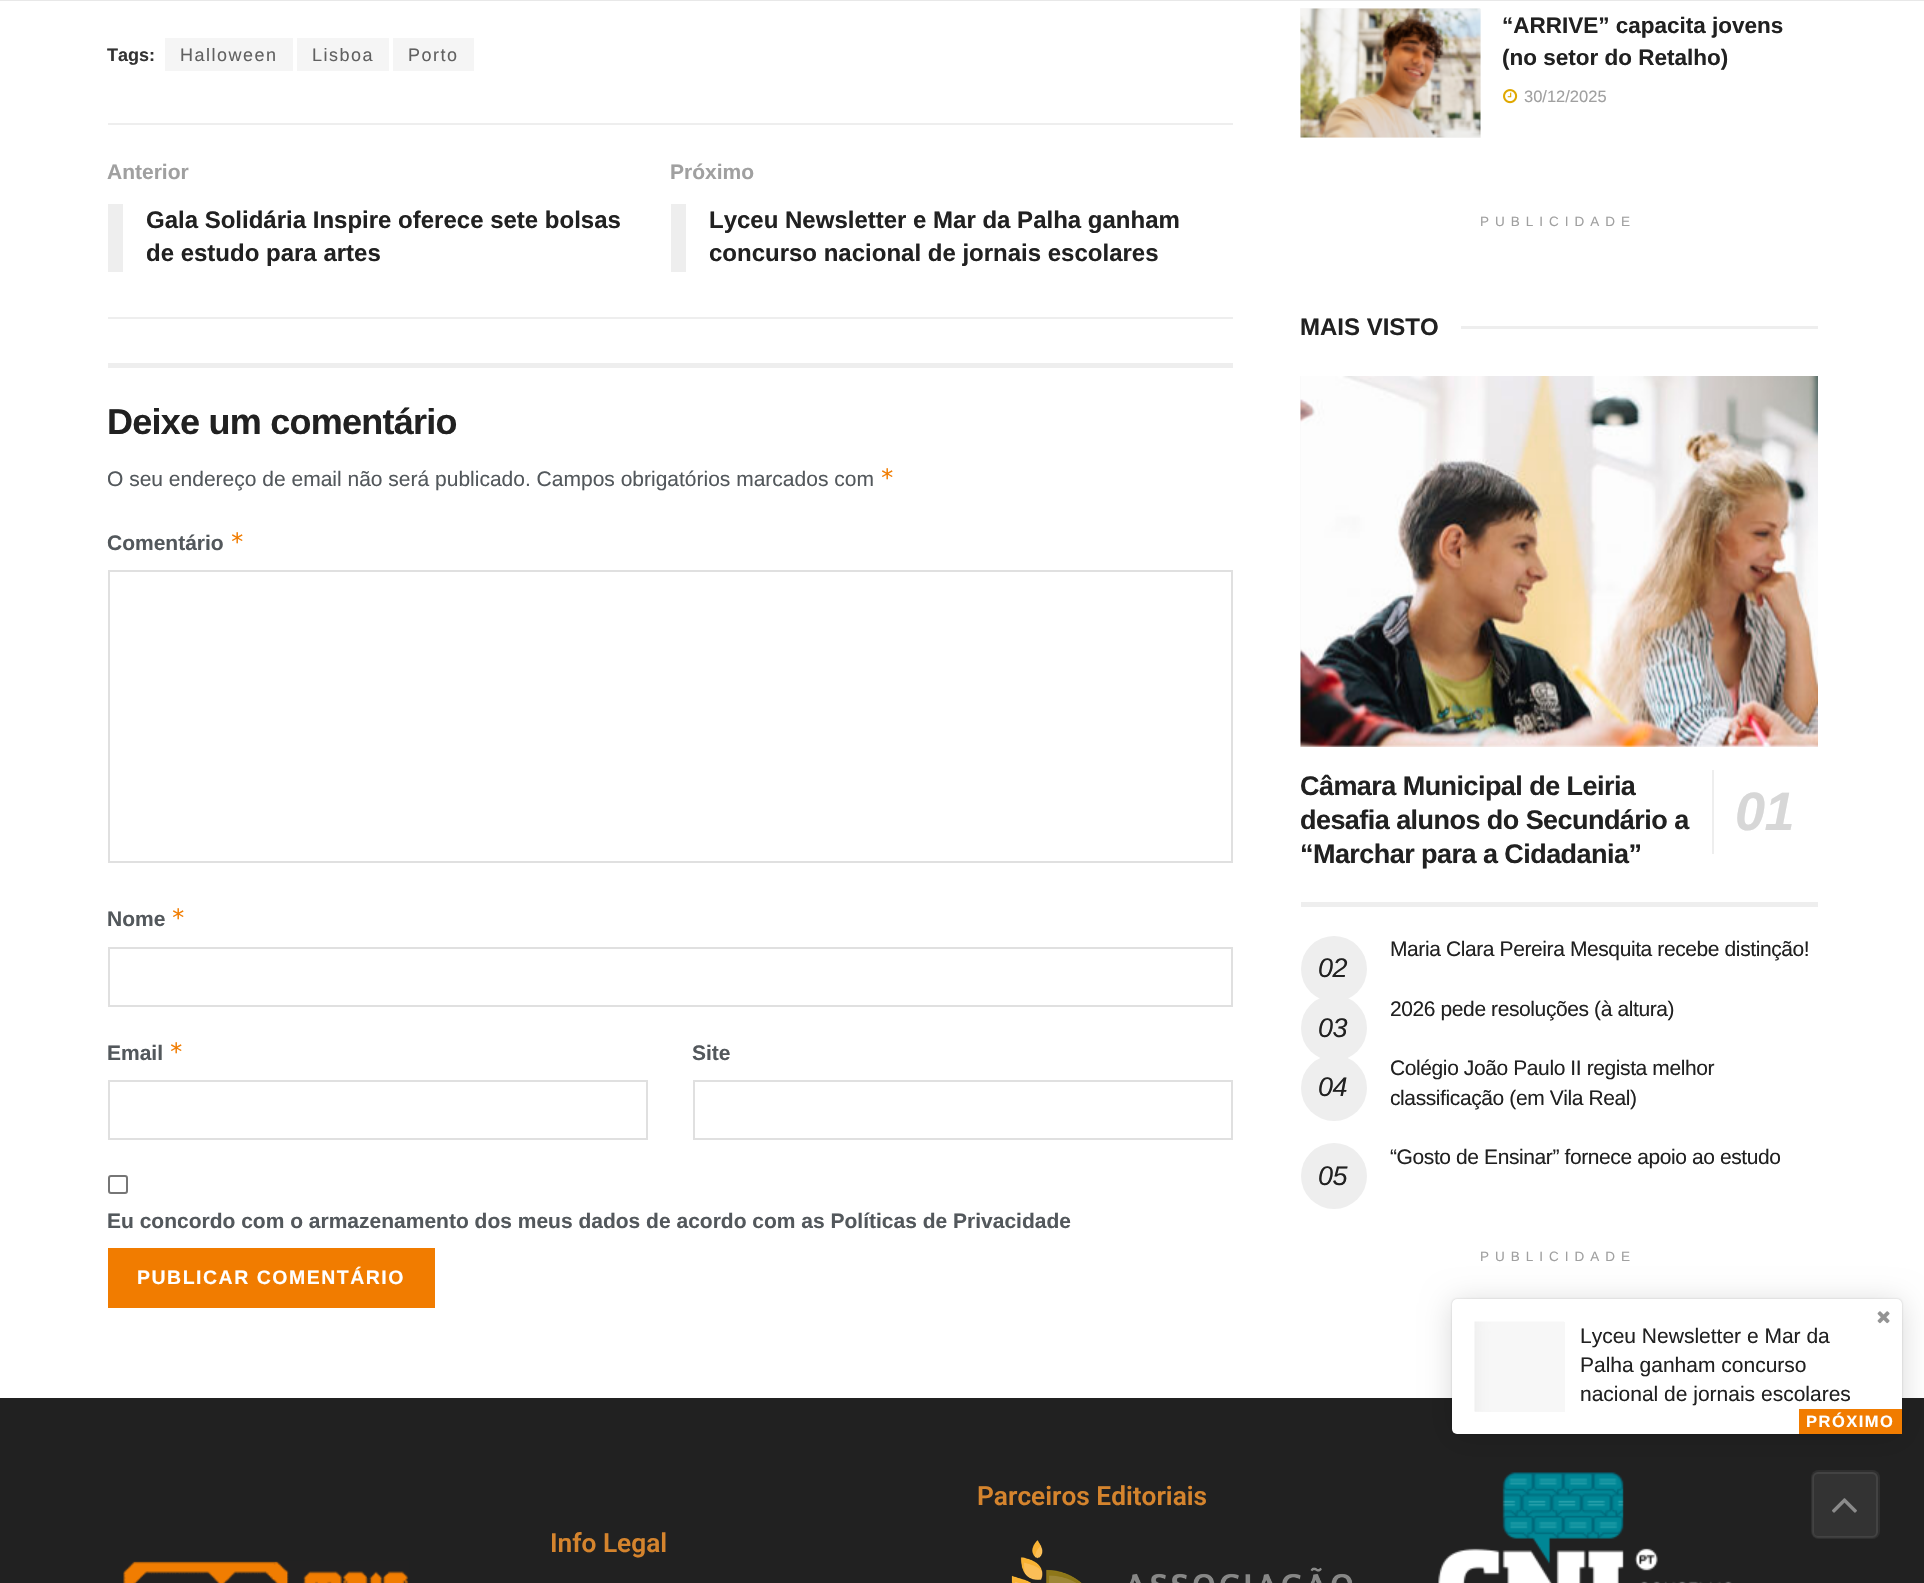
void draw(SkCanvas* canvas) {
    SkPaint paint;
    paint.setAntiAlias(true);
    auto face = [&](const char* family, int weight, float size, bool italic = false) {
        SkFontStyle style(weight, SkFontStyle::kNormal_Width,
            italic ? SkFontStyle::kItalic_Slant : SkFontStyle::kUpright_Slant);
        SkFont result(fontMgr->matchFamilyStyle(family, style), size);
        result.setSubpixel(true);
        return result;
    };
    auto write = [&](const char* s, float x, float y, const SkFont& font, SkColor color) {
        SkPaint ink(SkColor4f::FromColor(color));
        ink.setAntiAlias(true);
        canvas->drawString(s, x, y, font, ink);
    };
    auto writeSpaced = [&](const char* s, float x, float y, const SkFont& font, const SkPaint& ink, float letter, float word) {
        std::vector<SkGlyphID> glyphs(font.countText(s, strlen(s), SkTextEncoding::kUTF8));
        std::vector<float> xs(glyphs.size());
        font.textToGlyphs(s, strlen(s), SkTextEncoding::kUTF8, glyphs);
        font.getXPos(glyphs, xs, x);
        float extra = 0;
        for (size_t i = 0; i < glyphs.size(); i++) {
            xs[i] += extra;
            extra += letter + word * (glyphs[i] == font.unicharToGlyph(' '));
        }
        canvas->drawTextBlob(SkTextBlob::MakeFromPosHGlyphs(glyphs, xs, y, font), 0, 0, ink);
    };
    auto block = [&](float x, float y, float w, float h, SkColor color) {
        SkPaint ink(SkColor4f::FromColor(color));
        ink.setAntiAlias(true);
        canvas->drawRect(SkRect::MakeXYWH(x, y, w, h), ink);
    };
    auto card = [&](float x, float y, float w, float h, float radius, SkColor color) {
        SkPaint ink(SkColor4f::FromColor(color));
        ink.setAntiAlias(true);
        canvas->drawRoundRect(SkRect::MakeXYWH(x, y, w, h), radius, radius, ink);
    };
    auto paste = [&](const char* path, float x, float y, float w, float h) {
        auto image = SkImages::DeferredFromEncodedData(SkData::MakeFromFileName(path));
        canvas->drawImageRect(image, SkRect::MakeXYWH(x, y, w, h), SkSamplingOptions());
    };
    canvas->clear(SK_ColorWHITE);
    block(0, 0, 1924, 1, SkColorSetRGB(232, 232, 232));
    block(1301, 9, 180, 129, SkColorSetRGB(247, 247, 247));
    block(1300, 8, 180, 129, SkColorSetRGB(247, 247, 247));
    paste("pic1.png", 1300, 8, 181, 130);
    auto kFont1 = face("Liberation Sans", 700, 22.5f);
    write("“ARRIVE” capacita jovens", 1502, 33, kFont1, SkColorSetRGB(33, 33, 33));
    write("(no setor do Retalho)", 1502, 65, kFont1, SkColorSetRGB(33, 33, 33));
    paste("pic2.png", 1503, 89, 15, 15);
    auto kFont2 = face("Liberation Sans", 400, 16.5f);
    write("30/12/2025", 1524, 102, kFont2, SkColorSetRGB(160, 160, 160));
    auto kFont3 = face("Liberation Sans", 400, 13.5f);
    paint.setColor(SkColorSetRGB(160, 160, 160));
    writeSpaced("PUBLICIDADE", 1480, 226, kFont3, paint, 6, 0);
    auto kFont4 = face("Liberation Sans", 700, 24);
    write("MAIS VISTO", 1300, 335, kFont4, SkColorSetRGB(33, 33, 33));
    block(1461, 326, 357, 3, SkColorSetRGB(238, 238, 238));
    block(1301, 902, 517, 5, SkColorSetRGB(238, 238, 238));
    block(1300, 376, 518, 371, SkColorSetRGB(247, 247, 247));
    paste("pic3.png", 1300, 376, 518, 371);
    auto kFont5 = face("Liberation Sans", 700, 27);
    paint.setColor(SkColorSetRGB(33, 33, 33));
    writeSpaced("Câmara Municipal de Leiria", 1300, 795, kFont5, paint, -0.55f, 0);
    writeSpaced("desafia alunos do Secundário a", 1300, 829, kFont5, paint, -0.55f, 0);
    block(1712, 770, 2, 84, SkColorSetRGB(238, 238, 238));
    auto kFont6 = face("Liberation Sans", 700, 54, true);
    paint.setColor(SkColorSetRGB(215, 215, 215));
    writeSpaced("01", 1735, 830, kFont6, paint, -0.55f, 0);
    paint.setColor(SkColorSetRGB(33, 33, 33));
    writeSpaced("“Marchar para a Cidadania”", 1300, 863, kFont5, paint, -0.55f, 0);
    auto kFont7 = face("Liberation Sans", 400, 21);
    writeSpaced("Maria Clara Pereira Mesquita recebe distinção!", 1390, 956, kFont7, paint, -0.4f, 0);
    paint.setColor(SkColorSetRGB(238, 238, 238));
    canvas->drawCircle(1334, 969, 33, paint);
    auto kFont8 = face("Liberation Sans", 400, 27, true);
    paint.setColor(SkColorSetRGB(33, 33, 33));
    writeSpaced("02", 1318, 977, kFont8, paint, -0.4f, 0);
    writeSpaced("2026 pede resoluções (à altura)", 1390, 1016, kFont7, paint, -0.4f, 0);
    paint.setColor(SkColorSetRGB(238, 238, 238));
    canvas->drawCircle(1334, 1028, 33, paint);
    paint.setColor(SkColorSetRGB(33, 33, 33));
    writeSpaced("03", 1318, 1037, kFont8, paint, -0.4f, 0);
    writeSpaced("Colégio João Paulo II regista melhor", 1390, 1075, kFont7, paint, -0.4f, 0);
    paint.setColor(SkColorSetRGB(238, 238, 238));
    canvas->drawCircle(1334, 1088, 33, paint);
    paint.setColor(SkColorSetRGB(33, 33, 33));
    writeSpaced("04", 1318, 1096, kFont8, paint, -0.4f, 0);
    writeSpaced("classificação (em Vila Real)", 1390, 1105, kFont7, paint, -0.4f, 0);
    writeSpaced("“Gosto de Ensinar” fornece apoio ao estudo", 1390, 1164, kFont7, paint, -0.4f, 0);
    paint.setColor(SkColorSetRGB(238, 238, 238));
    canvas->drawCircle(1334, 1176, 33, paint);
    paint.setColor(SkColorSetRGB(33, 33, 33));
    writeSpaced("05", 1318, 1185, kFont8, paint, -0.4f, 0);
    paint.setColor(SkColorSetRGB(160, 160, 160));
    writeSpaced("PUBLICIDADE", 1480, 1261, kFont3, paint, 6, 0);
    auto kFont9 = face("Liberation Sans", 700, 18);
    write("Tags:", 107, 61, kFont9, SkColorSetRGB(51, 51, 51));
    block(165, 38, 128, 33, SkColorSetRGB(245, 245, 245));
    auto kFont10 = face("Liberation Sans", 400, 18);
    paint.setColor(SkColorSetRGB(97, 97, 97));
    writeSpaced("Halloween", 180, 61, kFont10, paint, 1.5f, 0);
    block(297, 38, 92, 33, SkColorSetRGB(245, 245, 245));
    writeSpaced("Lisboa", 312, 61, kFont10, paint, 1.5f, 0);
    block(393, 38, 81, 33, SkColorSetRGB(245, 245, 245));
    writeSpaced("Porto", 408, 61, kFont10, paint, 1.5f, 0);
    block(108, 123, 1125, 2, SkColorSetRGB(238, 238, 238));
    block(108, 317, 1125, 2, SkColorSetRGB(238, 238, 238));
    auto kFont11 = face("Liberation Sans", 700, 21);
    write("Anterior", 107, 179, kFont11, SkColorSetRGB(160, 160, 160));
    block(108, 204, 15, 68, SkColorSetRGB(238, 238, 238));
    write("Gala Solidária Inspire oferece sete bolsas", 146, 228, kFont4, SkColorSetRGB(33, 33, 33));
    write("de estudo para artes", 146, 261, kFont4, SkColorSetRGB(33, 33, 33));
    write("Próximo", 670, 179, kFont11, SkColorSetRGB(160, 160, 160));
    block(671, 204, 15, 68, SkColorSetRGB(238, 238, 238));
    write("Lyceu Newsletter e Mar da Palha ganham", 709, 228, kFont4, SkColorSetRGB(33, 33, 33));
    write("concurso nacional de jornais escolares", 709, 261, kFont4, SkColorSetRGB(33, 33, 33));
    block(108, 363, 1125, 5, SkColorSetRGB(238, 238, 238));
    auto kFont12 = face("Liberation Sans", 700, 36);
    paint.setColor(SkColorSetRGB(33, 33, 33));
    writeSpaced("Deixe um comentário", 107, 434, kFont12, paint, -0.75f, 0);
    write("O seu endereço de email não será publicado. Campos obrigatórios marcados com", 107, 486, kFont7, SkColorSetRGB(83, 88, 92));
    auto kFont13 = face("DejaVu Sans Mono", 400, 24);
    write("*", 880, 486, kFont13, SkColorSetRGB(241, 124, 0));
    write("Comentário", 107, 550, kFont11, SkColorSetRGB(83, 88, 92));
    write("*", 230, 550, kFont13, SkColorSetRGB(241, 124, 0));
    paint.setStyle(SkPaint::kStroke_Style);
    paint.setStrokeWidth(2);
    paint.setColor(SkColorSetRGB(224, 224, 224));
    canvas->drawRect(SkRect::MakeXYWH(109, 571, 1123, 291), paint);
    write("Nome", 107, 926, kFont11, SkColorSetRGB(83, 88, 92));
    write("*", 171, 926, kFont13, SkColorSetRGB(241, 124, 0));
    canvas->drawRect(SkRect::MakeXYWH(109, 948, 1123, 58), paint);
    write("Email", 107, 1060, kFont11, SkColorSetRGB(83, 88, 92));
    write("*", 169, 1060, kFont13, SkColorSetRGB(241, 124, 0));
    canvas->drawRect(SkRect::MakeXYWH(109, 1081, 538, 58), paint);
    write("Site", 692, 1060, kFont11, SkColorSetRGB(83, 88, 92));
    canvas->drawRect(SkRect::MakeXYWH(694, 1081, 538, 58), paint);
    paint.setColor(SkColorSetRGB(118, 118, 118));
    canvas->drawRoundRect(SkRect::MakeXYWH(109, 1176, 18, 17), 2, 2, paint);
    write("Eu concordo com o armazenamento dos meus dados de acordo com as Políticas de Privacidade", 107, 1228, kFont11, SkColorSetRGB(83, 88, 92));
    block(108, 1248, 327, 60, SkColorSetRGB(241, 124, 0));
    auto kFont14 = face("Liberation Sans", 700, 19.5f);
    paint.setStyle(SkPaint::kFill_Style);
    paint.setColor(SK_ColorWHITE);
    writeSpaced("PUBLICAR COMENTÁRIO", 137, 1284, kFont14, paint, 1.5f, 0);
    block(0, 1398, 1924, 185, SkColorSetRGB(33, 33, 33));
    paste("pic7.png", 1438, 1472, 294, 111);
    paint.setColor(SkColorSetARGB(38, 0, 0, 0));
    paint.setMaskFilter(SkMaskFilter::MakeBlur(kNormal_SkBlurStyle, 15));
    canvas->drawRoundRect(SkRect::MakeXYWH(1452, 1302, 450, 135), 5, 5, paint);
    paint.setMaskFilter(nullptr);
    paint.setColor(SkColorSetARGB(51, 0, 0, 0));
    paint.setMaskFilter(SkMaskFilter::MakeBlur(kNormal_SkBlurStyle, 1));
    canvas->drawRoundRect(SkRect::MakeXYWH(1452, 1299, 450, 135), 5, 5, paint);
    paint.setMaskFilter(nullptr);
    card(1452, 1299, 450, 135, 5, SK_ColorWHITE);
    paste("pic4.png", 1877, 1311, 13, 13);
    block(1475, 1322, 90, 90, SkColorSetRGB(247, 247, 247));
    paste("pic5.png", 1474, 1321, 90, 91);
    write("Lyceu Newsletter e Mar da", 1580, 1343, kFont7, SkColorSetRGB(33, 33, 33));
    write("Palha ganham concurso", 1580, 1372, kFont7, SkColorSetRGB(33, 33, 33));
    write("nacional de jornais escolares", 1580, 1401, kFont7, SkColorSetRGB(33, 33, 33));
    block(1799, 1409, 103, 25, SkColorSetRGB(241, 124, 0));
    auto kFont15 = face("Liberation Sans", 700, 16.5f);
    paint.setColor(SK_ColorWHITE);
    writeSpaced("PRÓXIMO", 1806, 1427, kFont15, paint, 1.5f, 0);
    auto kFont16 = face("Roboto", 600, 26.25f);
    write("Parceiros Editoriais", 977, 1505, kFont16, SkColorSetRGB(213, 132, 45));
    paste("pic6.png", 1011, 1540, 342, 43);
    write("Info Legal", 550, 1552, kFont16, SkColorSetRGB(213, 132, 45));
    paste("pic8.png", 123, 1561, 286, 22);
    card(1811, 1470, 69, 69, 8, SkColorSetRGB(51, 51, 51));
    paint.setStyle(SkPaint::kStroke_Style);
    paint.setColor(SkColorSetRGB(67, 67, 67));
    canvas->drawRoundRect(SkRect::MakeXYWH(1813, 1473, 64, 64), 5, 5, paint);
    paint.setColor(SkColorSetARGB(28, 7, 7, 7));
    canvas->drawRoundRect(SkRect::MakeXYWH(1812, 1471, 67, 67), 7, 7, paint);
    paste("pic9.png", 1832, 1498, 25, 15);
}
